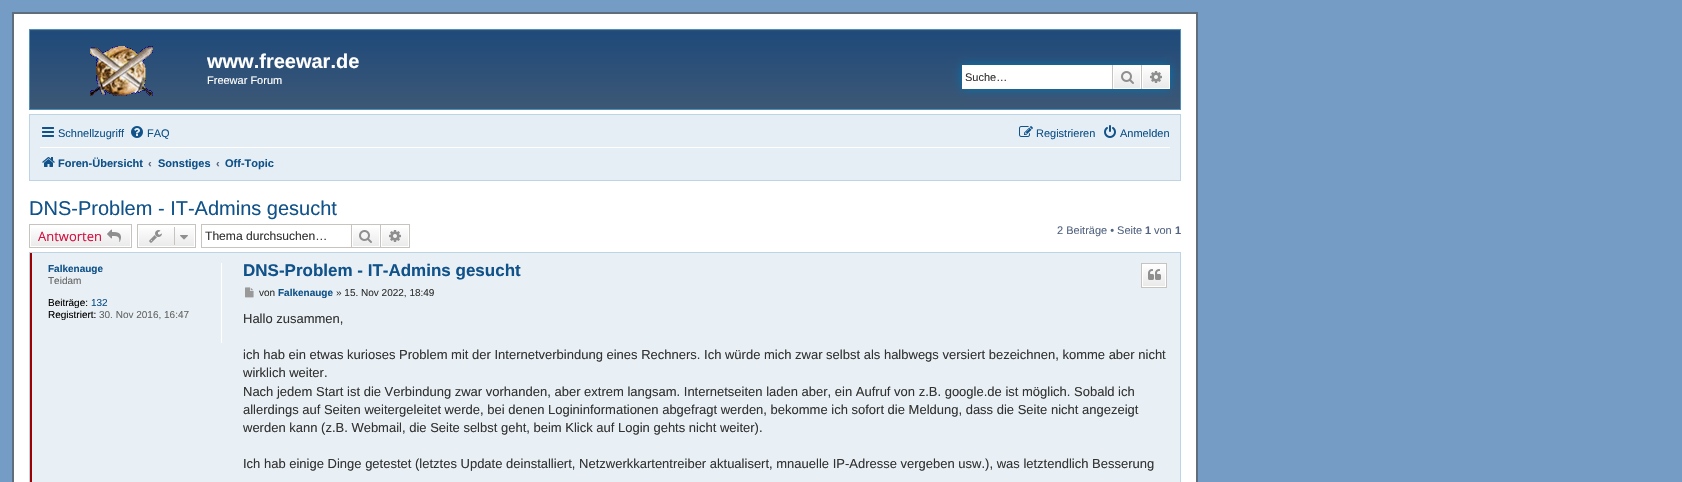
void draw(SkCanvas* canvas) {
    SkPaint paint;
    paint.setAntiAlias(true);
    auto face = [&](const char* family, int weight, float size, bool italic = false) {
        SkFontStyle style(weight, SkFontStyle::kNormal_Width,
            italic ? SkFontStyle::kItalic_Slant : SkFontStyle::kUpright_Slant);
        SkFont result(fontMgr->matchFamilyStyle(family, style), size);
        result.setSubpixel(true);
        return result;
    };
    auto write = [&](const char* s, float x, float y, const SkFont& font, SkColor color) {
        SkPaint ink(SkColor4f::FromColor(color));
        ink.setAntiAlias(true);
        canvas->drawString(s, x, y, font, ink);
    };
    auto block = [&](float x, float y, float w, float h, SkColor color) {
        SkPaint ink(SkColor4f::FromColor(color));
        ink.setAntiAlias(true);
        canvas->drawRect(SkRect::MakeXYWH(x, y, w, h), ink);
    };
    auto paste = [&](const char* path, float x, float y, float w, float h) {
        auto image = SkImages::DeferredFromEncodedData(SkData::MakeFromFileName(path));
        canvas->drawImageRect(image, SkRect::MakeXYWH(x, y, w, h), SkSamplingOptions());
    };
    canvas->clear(SkColorSetRGB(117, 156, 197));
    paint.setColor(SK_ColorWHITE);
    canvas->drawRect(SkRect::MakeXYWH(13, 13, 1184, 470), paint);
    paint.setStyle(SkPaint::kStroke_Style);
    paint.setStrokeWidth(2);
    paint.setColor(SkColorSetRGB(96, 110, 123));
    canvas->drawRect(SkRect::MakeXYWH(13, 13, 1184, 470), paint);
    paint.setStyle(SkPaint::kFill_Style);
    {
        const SkColor colors[] = {SkColorSetRGB(49, 82, 117), SkColorSetRGB(31, 74, 122), SkColorSetRGB(66, 90, 117), SkColorSetRGB(28, 46, 67)};
        const float stops[] = {0, 0.02f, 1, 1};
        const SkPoint ends[] = {{605, 30}, {605, 122}};
        paint.setShader(SkGradientShader::MakeLinear(ends, colors, stops, 4, SkTileMode::kClamp));
        paint.setAlpha(255);
    }
    canvas->drawRect(SkRect::MakeXYWH(30, 30, 1150, 79), paint);
    paint.setStyle(SkPaint::kStroke_Style);
    paint.setStrokeWidth(1);
    paint.setShader(nullptr);
    paint.setColor(SkColorSetRGB(79, 145, 182));
    canvas->drawRect(SkRect::MakeXYWH(29.5f, 29.5f, 1151, 80), paint);
    paste("pic1.png", 90, 46, 63, 50);
    auto kFont1 = face("Liberation Sans", 700, 20);
    write("www.freewar.de", 207, 68, kFont1, SK_ColorWHITE);
    auto kFont2 = face("Liberation Sans", 400, 11);
    write("Freewar Forum", 207, 84, kFont2, SK_ColorWHITE);
    paint.setStyle(SkPaint::kFill_Style);
    paint.setColor(SkColorSetRGB(0, 117, 176));
    paint.setMaskFilter(SkMaskFilter::MakeBlur(kNormal_SkBlurStyle, 5));
    canvas->drawRect(SkRect::MakeXYWH(962, 65, 208, 24), paint);
    paint.setMaskFilter(nullptr);
    block(962, 65, 150, 24, SK_ColorWHITE);
    write("Suche…", 965, 81, kFont2, SkColorSetRGB(51, 51, 51));
    {
        const SkColor colors[] = {SK_ColorWHITE, SkColorSetRGB(233, 233, 233)};
        const float stops[] = {0, 1};
        const SkPoint ends[] = {{1127, 65}, {1127, 89}};
        paint.setShader(SkGradientShader::MakeLinear(ends, colors, stops, 2, SkTileMode::kClamp));
        paint.setAlpha(255);
    }
    canvas->drawRect(SkRect::MakeXYWH(1114, 66, 26, 22), paint);
    paint.setStyle(SkPaint::kStroke_Style);
    paint.setShader(nullptr);
    paint.setColor(SK_ColorWHITE);
    canvas->drawRect(SkRect::MakeXYWH(1113.5f, 65.5f, 27, 23), paint);
    block(1141, 65, 1, 24, SkColorSetRGB(199, 195, 191));
    block(1112, 65, 1, 24, SkColorSetRGB(199, 195, 191));
    paste("pic2.png", 1121, 71, 13, 13);
    paint.setStyle(SkPaint::kFill_Style);
    {
        const SkColor colors[] = {SK_ColorWHITE, SkColorSetRGB(233, 233, 233)};
        const float stops[] = {0, 1};
        const SkPoint ends[] = {{1156, 65}, {1156, 89}};
        paint.setShader(SkGradientShader::MakeLinear(ends, colors, stops, 2, SkTileMode::kClamp));
        paint.setAlpha(255);
    }
    canvas->drawRect(SkRect::MakeXYWH(1143, 66, 26, 22), paint);
    paint.setStyle(SkPaint::kStroke_Style);
    paint.setShader(nullptr);
    paint.setColor(SK_ColorWHITE);
    canvas->drawRect(SkRect::MakeXYWH(1142.5f, 65.5f, 27, 23), paint);
    paste("pic3.png", 1150, 71, 12, 12);
    paint.setStyle(SkPaint::kFill_Style);
    paint.setColor(SkColorSetRGB(229, 238, 245));
    canvas->drawRect(SkRect::MakeXYWH(29.5f, 114.5f, 1151, 66), paint);
    paint.setStyle(SkPaint::kStroke_Style);
    paint.setColor(SkColorSetRGB(188, 212, 227));
    canvas->drawRect(SkRect::MakeXYWH(29.5f, 114.5f, 1151, 66), paint);
    paste("pic4.png", 42, 127, 12, 10);
    write("Schnellzugriff", 58, 137, kFont2, SkColorSetRGB(16, 82, 137));
    paste("pic5.png", 131, 126, 12, 12);
    write("FAQ", 147, 137, kFont2, SkColorSetRGB(16, 82, 137));
    paste("pic6.png", 1019, 126, 14, 11);
    write("Registrieren", 1036, 137, kFont2, SkColorSetRGB(16, 82, 137));
    paste("pic7.png", 1104, 125, 12, 13);
    write("Anmelden", 1120, 137, kFont2, SkColorSetRGB(16, 82, 137));
    block(40, 147, 1130, 1, SK_ColorWHITE);
    paste("pic8.png", 42, 157, 13, 10);
    auto kFont3 = face("Liberation Sans", 700, 11);
    write("Foren-Übersicht", 58, 167, kFont3, SkColorSetRGB(16, 82, 137));
    write("‹", 148, 167, kFont3, SkColorSetRGB(83, 100, 130));
    write("Sonstiges", 158, 167, kFont3, SkColorSetRGB(16, 82, 137));
    write("‹", 216, 167, kFont3, SkColorSetRGB(83, 100, 130));
    write("Off-Topic", 225, 167, kFont3, SkColorSetRGB(16, 82, 137));
    auto kFont4 = face("Liberation Sans", 400, 20);
    write("DNS-Problem - IT-Admins gesucht", 29, 215, kFont4, SkColorSetRGB(16, 82, 137));
    paint.setStyle(SkPaint::kFill_Style);
    {
        const SkColor colors[] = {SK_ColorWHITE, SkColorSetRGB(233, 233, 233)};
        const float stops[] = {0, 1};
        const SkPoint ends[] = {{81, 225}, {81, 247}};
        paint.setShader(SkGradientShader::MakeLinear(ends, colors, stops, 2, SkTileMode::kClamp));
        paint.setAlpha(255);
    }
    canvas->drawRect(SkRect::MakeXYWH(31, 228, 99, 18), paint);
    paint.setStyle(SkPaint::kStroke_Style);
    paint.setShader(nullptr);
    paint.setColor(SkColorSetRGB(199, 195, 191));
    canvas->drawRect(SkRect::MakeXYWH(29.5f, 224.5f, 102, 23), paint);
    auto kFont5 = face("Open Sans", 400, 13);
    write("Antworten", 38, 241, kFont5, SkColorSetRGB(211, 17, 65));
    paste("pic9.png", 107, 229, 14, 13);
    paint.setStyle(SkPaint::kFill_Style);
    {
        const SkColor colors[] = {SK_ColorWHITE, SkColorSetRGB(233, 233, 233)};
        const float stops[] = {0, 1};
        const SkPoint ends[] = {{167, 225}, {167, 247}};
        paint.setShader(SkGradientShader::MakeLinear(ends, colors, stops, 2, SkTileMode::kClamp));
        paint.setAlpha(255);
    }
    canvas->drawRect(SkRect::MakeXYWH(139, 228, 55, 18), paint);
    paint.setStyle(SkPaint::kStroke_Style);
    paint.setShader(nullptr);
    paint.setColor(SkColorSetRGB(199, 195, 191));
    canvas->drawRect(SkRect::MakeXYWH(137.5f, 224.5f, 58, 23), paint);
    paste("pic10.png", 149, 230, 13, 13);
    block(174, 227, 1, 18, SkColorSetRGB(199, 195, 191));
    paste("pic11.png", 180, 235, 8, 5);
    block(201, 224, 150, 1, SkColorSetRGB(199, 195, 191));
    block(201, 247, 150, 1, SkColorSetRGB(199, 195, 191));
    block(201, 224, 1, 24, SkColorSetRGB(199, 195, 191));
    auto kFont6 = face("Liberation Sans", 400, 12.1f);
    write("Thema durchsuchen…", 205, 240, kFont6, SkColorSetRGB(51, 51, 51));
    paint.setStyle(SkPaint::kFill_Style);
    {
        const SkColor colors[] = {SK_ColorWHITE, SkColorSetRGB(233, 233, 233)};
        const float stops[] = {0, 1};
        const SkPoint ends[] = {{366, 225}, {366, 247}};
        paint.setShader(SkGradientShader::MakeLinear(ends, colors, stops, 2, SkTileMode::kClamp));
        paint.setAlpha(255);
    }
    canvas->drawRect(SkRect::MakeXYWH(353, 228, 26, 18), paint);
    paint.setStyle(SkPaint::kStroke_Style);
    paint.setShader(nullptr);
    paint.setColor(SkColorSetRGB(199, 195, 191));
    canvas->drawRect(SkRect::MakeXYWH(351.5f, 224.5f, 29, 23), paint);
    paste("pic12.png", 359, 230, 13, 13);
    paint.setStyle(SkPaint::kFill_Style);
    {
        const SkColor colors[] = {SK_ColorWHITE, SkColorSetRGB(233, 233, 233)};
        const float stops[] = {0, 1};
        const SkPoint ends[] = {{395, 225}, {395, 247}};
        paint.setShader(SkGradientShader::MakeLinear(ends, colors, stops, 2, SkTileMode::kClamp));
        paint.setAlpha(255);
    }
    canvas->drawRect(SkRect::MakeXYWH(382, 228, 26, 18), paint);
    block(381, 224, 29, 1, SkColorSetRGB(199, 195, 191));
    block(409, 224, 1, 24, SkColorSetRGB(199, 195, 191));
    block(381, 247, 29, 1, SkColorSetRGB(199, 195, 191));
    paste("pic13.png", 389, 230, 12, 12);
    write("2 Beiträge • Seite", 1057, 234, kFont2, SkColorSetRGB(83, 100, 130));
    write("1", 1145, 234, kFont3, SkColorSetRGB(83, 100, 130));
    write("von", 1154, 234, kFont2, SkColorSetRGB(83, 100, 130));
    write("1", 1175, 234, kFont3, SkColorSetRGB(83, 100, 130));
    block(32, 253, 1148, 229, SkColorSetRGB(233, 240, 245));
    block(30, 252, 2, 230, SkColorSetRGB(156, 0, 3));
    paint.setStyle(SkPaint::kStroke_Style);
    paint.setShader(nullptr);
    paint.setColor(SkColorSetRGB(188, 212, 227));
    canvas->drawRect(SkRect::MakeXYWH(29.5f, 252.5f, 1151, 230), paint);
    block(221, 263, 1, 80, SK_ColorWHITE);
    auto kFont7 = face("Liberation Sans", 700, 10);
    write("Falkenauge", 48, 272, kFont7, SkColorSetRGB(16, 82, 137));
    auto kFont8 = face("Liberation Sans", 400, 10);
    write("Teidam", 48, 284, kFont8, SkColorSetRGB(102, 102, 102));
    write("Beiträge:", 48, 306, kFont8, SK_ColorBLACK);
    write("132", 91, 306, kFont8, SkColorSetRGB(16, 82, 137));
    write("Registriert:", 48, 318, kFont8, SK_ColorBLACK);
    write("30. Nov 2016, 16:47", 99, 318, kFont8, SkColorSetRGB(102, 102, 102));
    auto kFont9 = face("Liberation Sans", 700, 17);
    write("DNS-Problem - IT-Admins gesucht", 243, 276, kFont9, SkColorSetRGB(16, 82, 137));
    paint.setStyle(SkPaint::kFill_Style);
    {
        const SkColor colors[] = {SK_ColorWHITE, SkColorSetRGB(233, 233, 233)};
        const float stops[] = {0, 1};
        const SkPoint ends[] = {{1154, 264}, {1154, 287}};
        paint.setShader(SkGradientShader::MakeLinear(ends, colors, stops, 2, SkTileMode::kClamp));
        paint.setAlpha(255);
    }
    canvas->drawRect(SkRect::MakeXYWH(1143, 265, 22, 21), paint);
    paint.setStyle(SkPaint::kStroke_Style);
    paint.setShader(nullptr);
    paint.setColor(SK_ColorWHITE);
    canvas->drawRect(SkRect::MakeXYWH(1142.5f, 264.5f, 23, 22), paint);
    paint.setColor(SkColorSetRGB(199, 195, 191));
    canvas->drawRect(SkRect::MakeXYWH(1141.5f, 263.5f, 25, 24), paint);
    paste("pic14.png", 1148, 269, 13, 11);
    paste("pic15.png", 245, 287, 9, 11);
    write("von", 259, 296, kFont8, SkColorSetRGB(51, 51, 51));
    write("Falkenauge", 278, 296, kFont7, SkColorSetRGB(16, 82, 137));
    write("» 15. Nov 2022, 18:49", 336, 296, kFont8, SkColorSetRGB(51, 51, 51));
    auto kFont10 = face("Liberation Sans", 400, 13);
    write("Hallo zusammen,", 243, 323, kFont10, SkColorSetRGB(51, 51, 51));
    write("ich hab ein etwas kurioses Problem mit der Internetverbindung eines Rechners. Ich würde mich zwar selbst als halbwegs versiert bezeichnen, komme aber nicht", 243, 359, kFont10, SkColorSetRGB(51, 51, 51));
    write("wirklich weiter.", 243, 377, kFont10, SkColorSetRGB(51, 51, 51));
    write("Nach jedem Start ist die Verbindung zwar vorhanden, aber extrem langsam. Internetseiten laden aber, ein Aufruf von z.B. google.de ist möglich. Sobald ich", 243, 396, kFont10, SkColorSetRGB(51, 51, 51));
    write("allerdings auf Seiten weitergeleitet werde, bei denen Logininformationen abgefragt werden, bekomme ich sofort die Meldung, dass die Seite nicht angezeigt", 243, 414, kFont10, SkColorSetRGB(51, 51, 51));
    write("werden kann (z.B. Webmail, die Seite selbst geht, beim Klick auf Login gehts nicht weiter).", 243, 432, kFont10, SkColorSetRGB(51, 51, 51));
    write("Ich hab einige Dinge getestet (letztes Update deinstalliert, Netzwerkkartentreiber aktualisert, mnauelle IP-Adresse vergeben usw.), was letztendlich Besserung", 243, 468, kFont10, SkColorSetRGB(51, 51, 51));
}
